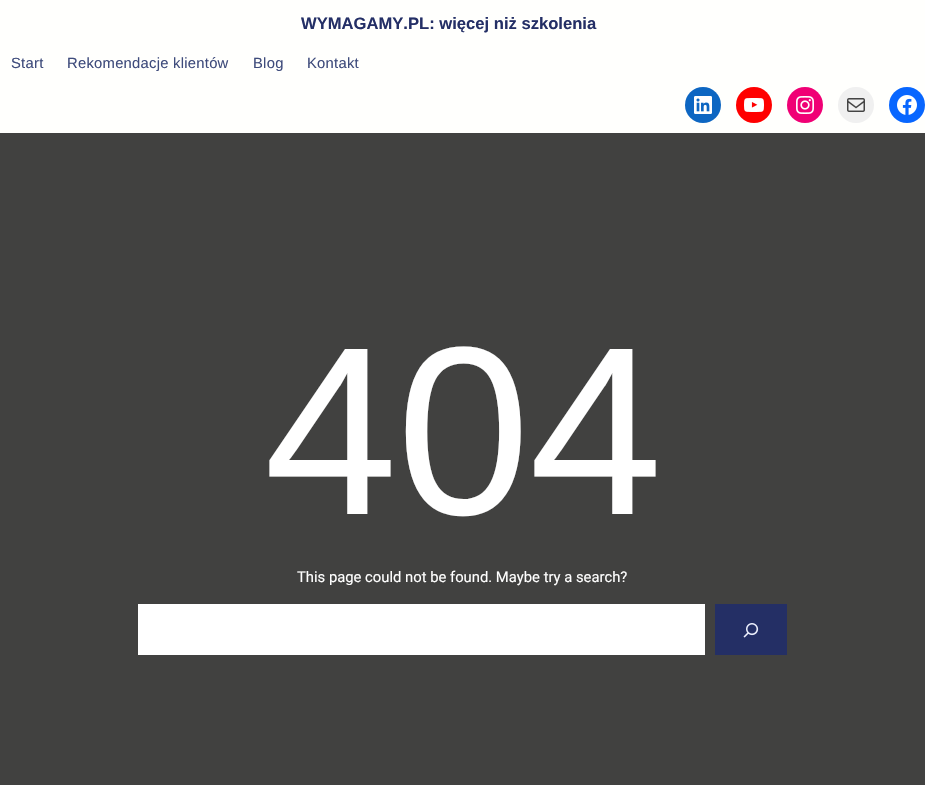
void draw(SkCanvas* canvas) {
    SkPaint paint;
    paint.setAntiAlias(true);
    auto face = [&](const char* family, int weight, float size, bool italic = false) {
        SkFontStyle style(weight, SkFontStyle::kNormal_Width,
            italic ? SkFontStyle::kItalic_Slant : SkFontStyle::kUpright_Slant);
        SkFont result(fontMgr->matchFamilyStyle(family, style), size);
        result.setSubpixel(true);
        return result;
    };
    auto write = [&](const char* s, float x, float y, const SkFont& font, SkColor color) {
        SkPaint ink(SkColor4f::FromColor(color));
        ink.setAntiAlias(true);
        canvas->drawString(s, x, y, font, ink);
    };
    auto writeSpaced = [&](const char* s, float x, float y, const SkFont& font, const SkPaint& ink, float letter, float word) {
        std::vector<SkGlyphID> glyphs(font.countText(s, strlen(s), SkTextEncoding::kUTF8));
        std::vector<float> xs(glyphs.size());
        font.textToGlyphs(s, strlen(s), SkTextEncoding::kUTF8, glyphs);
        font.getXPos(glyphs, xs, x);
        float extra = 0;
        for (size_t i = 0; i < glyphs.size(); i++) {
            xs[i] += extra;
            extra += letter + word * (glyphs[i] == font.unicharToGlyph(' '));
        }
        canvas->drawTextBlob(SkTextBlob::MakeFromPosHGlyphs(glyphs, xs, y, font), 0, 0, ink);
    };
    auto block = [&](float x, float y, float w, float h, SkColor color) {
        SkPaint ink(SkColor4f::FromColor(color));
        ink.setAntiAlias(true);
        canvas->drawRect(SkRect::MakeXYWH(x, y, w, h), ink);
    };
    auto paste = [&](const char* path, float x, float y, float w, float h) {
        auto image = SkImages::DeferredFromEncodedData(SkData::MakeFromFileName(path));
        canvas->drawImageRect(image, SkRect::MakeXYWH(x, y, w, h), SkSamplingOptions());
    };
    canvas->clear(SkColorSetRGB(255, 255, 253));
    auto kFont1 = face("Liberation Sans", 700, 16.6f);
    write("WYMAGAMY.PL: więcej niż szkolenia", 301, 29, kFont1, SkColorSetRGB(36, 47, 102));
    auto kFont2 = face("Liberation Sans", 400, 14.8f);
    paint.setColor(SkColorSetRGB(63, 76, 124));
    writeSpaced("Start", 11, 68, kFont2, paint, 0.25f, 0);
    writeSpaced("Rekomendacje klientów", 67, 68, kFont2, paint, 0.25f, 0);
    writeSpaced("Blog", 253, 68, kFont2, paint, 0.25f, 0);
    writeSpaced("Kontakt", 307, 68, kFont2, paint, 0.25f, 0);
    paint.setColor(SkColorSetRGB(13, 102, 194));
    canvas->drawCircle(703, 105, 18, paint);
    paste("pic1.png", 694, 96, 18, 18);
    paint.setColor(SkColorSetRGB(255, 0, 0));
    canvas->drawCircle(754, 105, 18, paint);
    paste("pic2.png", 744, 98, 20, 14);
    paint.setColor(SkColorSetRGB(240, 0, 117));
    canvas->drawCircle(805, 105, 18, paint);
    paste("pic3.png", 796, 96, 18, 18);
    paint.setColor(SkColorSetRGB(240, 240, 240));
    canvas->drawCircle(856, 105, 18, paint);
    paste("pic4.png", 847, 98, 18, 14);
    paint.setColor(SkColorSetRGB(8, 102, 255));
    canvas->drawCircle(907, 105, 18, paint);
    paste("pic5.png", 897, 95, 20, 20);
    block(0, 133, 925, 652, SkColorSetRGB(65, 65, 64));
    auto kFont3 = face("Liberation Sans", 400, 240);
    paint.setColor(SK_ColorWHITE);
    writeSpaced("404", 264, 514, kFont3, paint, -1, 0);
    auto kFont4 = face("Roboto", 400, 14.8f);
    write("This page could not be found. Maybe try a search?", 297, 582, kFont4, SK_ColorWHITE);
    block(138, 604, 567, 51, SK_ColorWHITE);
    block(715, 604, 72, 51, SkColorSetRGB(36, 47, 101));
    paste("pic6.png", 743, 623, 16, 15);
}
